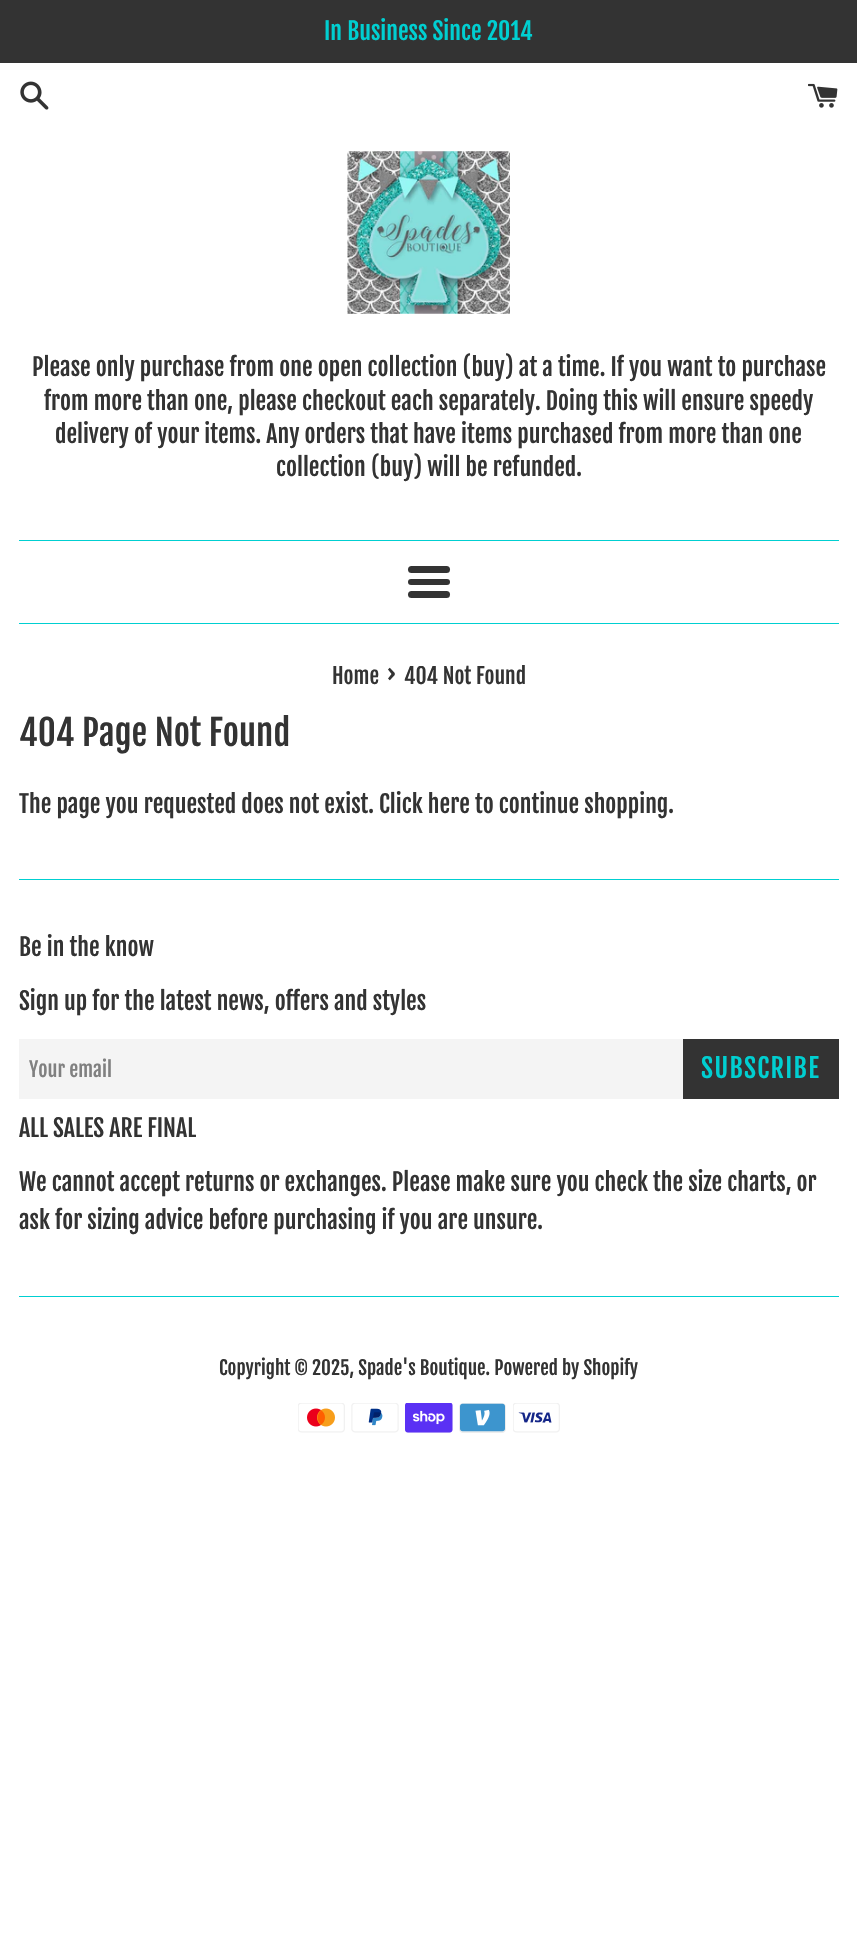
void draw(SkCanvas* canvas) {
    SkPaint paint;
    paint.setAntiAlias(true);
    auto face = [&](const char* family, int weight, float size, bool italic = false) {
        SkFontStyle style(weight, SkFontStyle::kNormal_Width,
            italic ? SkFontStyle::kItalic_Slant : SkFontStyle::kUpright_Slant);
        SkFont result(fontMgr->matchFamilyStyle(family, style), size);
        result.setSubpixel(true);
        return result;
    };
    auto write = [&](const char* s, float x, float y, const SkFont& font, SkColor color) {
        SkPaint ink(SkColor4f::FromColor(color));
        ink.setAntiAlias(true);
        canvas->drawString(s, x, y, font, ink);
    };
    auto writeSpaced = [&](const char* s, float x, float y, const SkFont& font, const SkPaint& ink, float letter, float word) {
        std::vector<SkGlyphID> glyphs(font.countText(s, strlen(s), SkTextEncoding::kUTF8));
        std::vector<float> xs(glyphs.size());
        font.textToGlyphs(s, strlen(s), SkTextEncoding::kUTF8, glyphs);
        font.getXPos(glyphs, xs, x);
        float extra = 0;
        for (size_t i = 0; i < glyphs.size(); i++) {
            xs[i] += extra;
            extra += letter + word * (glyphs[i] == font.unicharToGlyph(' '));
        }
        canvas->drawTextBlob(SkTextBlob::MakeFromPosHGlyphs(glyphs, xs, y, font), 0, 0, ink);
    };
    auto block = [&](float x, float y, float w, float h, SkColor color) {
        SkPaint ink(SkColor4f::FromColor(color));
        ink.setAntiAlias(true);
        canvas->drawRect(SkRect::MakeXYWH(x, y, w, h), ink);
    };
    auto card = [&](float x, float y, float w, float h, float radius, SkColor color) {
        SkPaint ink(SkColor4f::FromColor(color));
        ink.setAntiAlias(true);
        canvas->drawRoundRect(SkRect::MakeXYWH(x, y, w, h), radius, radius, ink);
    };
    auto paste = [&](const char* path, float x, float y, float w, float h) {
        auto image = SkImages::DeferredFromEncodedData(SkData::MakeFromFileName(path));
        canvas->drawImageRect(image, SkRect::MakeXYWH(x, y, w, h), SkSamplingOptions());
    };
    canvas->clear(SK_ColorWHITE);
    block(0, 0, 857, 63, SkColorSetRGB(51, 51, 51));
    auto kFont1 = face("Fjalla One", 400, 23.75f);
    write("In Business Since 2014", 324, 40, kFont1, SkColorSetRGB(0, 207, 209));
    paste("pic1.png", 20, 81, 29, 29);
    paste("pic2.png", 808, 83, 30, 25);
    paste("pic3.png", 347, 151, 163, 163);
    write("Please only purchase from one open collection (buy) at a time. If you want to purchase", 32, 376, kFont1, SkColorSetRGB(51, 51, 51));
    write("from more than one, please checkout each separately. Doing this will ensure speedy", 44, 410, kFont1, SkColorSetRGB(51, 51, 51));
    write("delivery of your items. Any orders that have items purchased from more than one", 55, 443, kFont1, SkColorSetRGB(51, 51, 51));
    write("collection (buy) will be refunded.", 276, 476, kFont1, SkColorSetRGB(51, 51, 51));
    block(19, 540, 820, 1, SkColorSetRGB(0, 207, 209));
    card(408, 566, 42, 7, 3.5f, SkColorSetRGB(51, 51, 51));
    card(408, 579, 42, 6, 3, SkColorSetRGB(51, 51, 51));
    card(408, 591, 42, 7, 3.5f, SkColorSetRGB(51, 51, 51));
    block(19, 623, 820, 1, SkColorSetRGB(0, 207, 209));
    auto kFont2 = face("Fjalla One", 400, 21.5f);
    write("Home", 332, 684, kFont2, SkColorSetRGB(51, 51, 51));
    auto kFont3 = face("Fjalla One", 400, 26);
    write("›", 386, 684, kFont3, SkColorSetRGB(51, 51, 51));
    write("404 Not Found", 404, 684, kFont2, SkColorSetRGB(51, 51, 51));
    auto kFont4 = face("Fjalla One", 400, 35);
    write("404 Page Not Found", 19, 746, kFont4, SkColorSetRGB(51, 51, 51));
    write("The page you requested does not exist. Click here to continue shopping.", 19, 813, kFont1, SkColorSetRGB(51, 51, 51));
    block(19, 879, 820, 1, SkColorSetRGB(0, 207, 209));
    write("Be in the know", 19, 956, kFont1, SkColorSetRGB(51, 51, 51));
    write("Sign up for the latest news, offers and styles", 19, 1010, kFont1, SkColorSetRGB(51, 51, 51));
    block(19, 1039, 664, 60, SkColorSetRGB(244, 244, 244));
    auto kFont5 = face("Fjalla One", 400, 20);
    write("Your email", 29, 1077, kFont5, SkColorSetRGB(128, 128, 128));
    block(683, 1039, 156, 60, SkColorSetRGB(51, 51, 51));
    auto kFont6 = face("Fjalla One", 400, 26.25f);
    paint.setColor(SkColorSetRGB(0, 207, 209));
    writeSpaced("SUBSCRIBE", 701, 1078, kFont6, paint, 1.25f, 0);
    write("ALL SALES ARE FINAL", 19, 1137, kFont1, SkColorSetRGB(51, 51, 51));
    write("We cannot accept returns or exchanges. Please make sure you check the size charts, or", 19, 1191, kFont1, SkColorSetRGB(51, 51, 51));
    write("ask for sizing advice before purchasing if you are unsure.", 19, 1229, kFont1, SkColorSetRGB(51, 51, 51));
    block(19, 1296, 820, 1, SkColorSetRGB(0, 207, 209));
    auto kFont7 = face("Fjalla One", 400, 19);
    write("Copyright © 2025, Spade's Boutique. Powered by Shopify", 219, 1375, kFont7, SkColorSetRGB(51, 51, 51));
    paste("pic4.png", 298, 1403, 47, 30);
    paste("pic5.png", 351, 1403, 48, 30);
    paste("pic6.png", 405, 1403, 48, 30);
    paste("pic7.png", 459, 1403, 47, 30);
    paste("pic8.png", 513, 1403, 47, 30);
}
